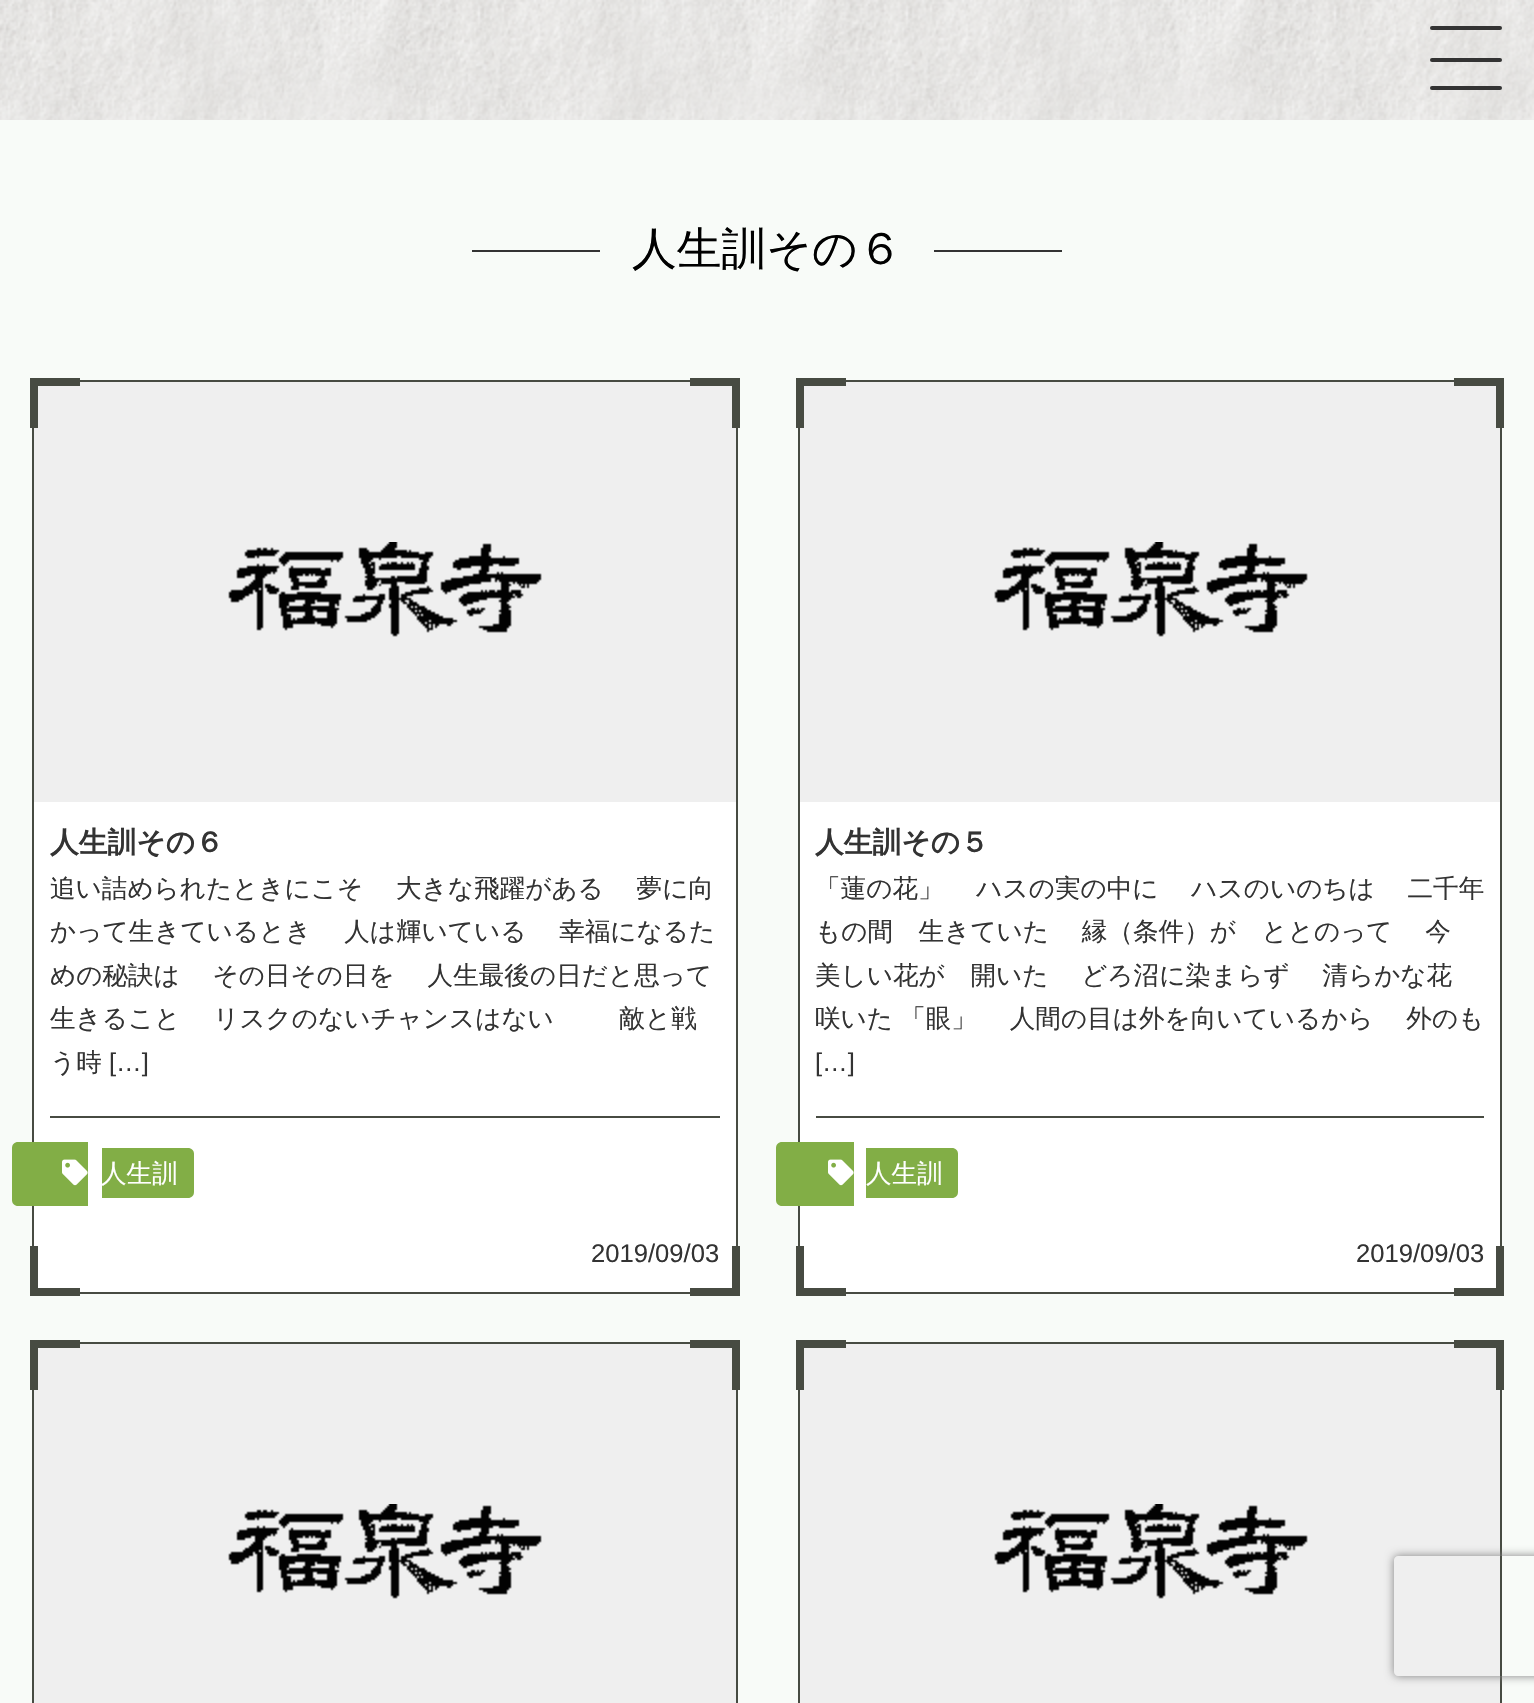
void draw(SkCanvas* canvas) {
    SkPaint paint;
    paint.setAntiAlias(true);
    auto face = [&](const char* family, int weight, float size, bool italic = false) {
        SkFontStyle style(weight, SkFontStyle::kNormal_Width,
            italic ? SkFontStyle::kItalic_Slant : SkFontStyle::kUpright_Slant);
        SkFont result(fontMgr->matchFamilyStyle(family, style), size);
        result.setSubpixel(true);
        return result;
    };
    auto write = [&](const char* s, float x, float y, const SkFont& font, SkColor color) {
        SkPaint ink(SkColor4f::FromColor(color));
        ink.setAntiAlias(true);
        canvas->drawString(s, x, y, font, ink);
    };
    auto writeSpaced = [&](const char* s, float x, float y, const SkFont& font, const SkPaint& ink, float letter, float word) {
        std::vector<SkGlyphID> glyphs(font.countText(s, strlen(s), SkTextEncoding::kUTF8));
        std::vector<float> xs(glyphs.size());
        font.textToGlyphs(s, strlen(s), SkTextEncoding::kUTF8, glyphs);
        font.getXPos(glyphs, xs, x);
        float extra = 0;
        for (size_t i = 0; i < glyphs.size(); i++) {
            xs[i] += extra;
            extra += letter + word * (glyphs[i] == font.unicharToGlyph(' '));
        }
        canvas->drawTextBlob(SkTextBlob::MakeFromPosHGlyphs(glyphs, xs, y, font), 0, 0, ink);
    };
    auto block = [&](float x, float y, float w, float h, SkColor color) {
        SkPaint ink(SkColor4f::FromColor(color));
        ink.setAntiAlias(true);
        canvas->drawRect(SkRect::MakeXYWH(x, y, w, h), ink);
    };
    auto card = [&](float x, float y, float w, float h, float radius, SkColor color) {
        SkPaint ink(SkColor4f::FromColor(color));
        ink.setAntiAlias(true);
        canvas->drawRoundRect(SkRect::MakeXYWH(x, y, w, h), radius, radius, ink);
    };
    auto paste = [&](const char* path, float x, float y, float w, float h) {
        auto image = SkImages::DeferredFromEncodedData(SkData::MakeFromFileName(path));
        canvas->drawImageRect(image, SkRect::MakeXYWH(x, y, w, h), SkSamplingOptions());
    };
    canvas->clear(SkColorSetRGB(248, 251, 248));
    paste("pic1.png", 0, 0, 1534, 120);
    card(1430, 26, 72, 4, 2, SkColorSetRGB(51, 51, 51));
    card(1430, 58, 72, 4, 2, SkColorSetRGB(51, 51, 51));
    card(1430, 86, 72, 4, 2, SkColorSetRGB(51, 51, 51));
    block(472, 250, 128, 2, SkColorSetRGB(51, 51, 51));
    auto kFont1 = face("WenQuanYi Zen Hei", 500, 44.75f);
    write("人生訓その６", 632, 264, kFont1, SK_ColorBLACK);
    block(934, 250, 128, 2, SkColorSetRGB(51, 51, 51));
    block(34, 802, 702, 490, SK_ColorWHITE);
    paint.setStyle(SkPaint::kStroke_Style);
    paint.setStrokeWidth(2);
    paint.setColor(SkColorSetRGB(71, 75, 66));
    canvas->drawRect(SkRect::MakeXYWH(33, 381, 704, 912), paint);
    block(34, 382, 702, 420, SkColorSetRGB(239, 239, 239));
    block(30, 378, 50, 8, SkColorSetRGB(71, 75, 66));
    block(30, 378, 8, 50, SkColorSetRGB(71, 75, 66));
    block(690, 378, 50, 8, SkColorSetRGB(71, 75, 66));
    block(732, 378, 8, 50, SkColorSetRGB(71, 75, 66));
    paste("pic2.png", 228, 542, 314, 95);
    block(50, 1116, 670, 2, SkColorSetRGB(71, 75, 66));
    auto kFont2 = face("WenQuanYi Zen Hei", 700, 28.75f);
    write("人生訓その６", 50, 852, kFont2, SkColorSetRGB(51, 51, 51));
    auto kFont3 = face("WenQuanYi Zen Hei", 500, 25.6f);
    paint.setStyle(SkPaint::kFill_Style);
    paint.setColor(SkColorSetRGB(51, 51, 51));
    writeSpaced("追い詰められたときにこそ 　大きな飛躍がある 　夢に向", 50, 897, kFont3, paint, 0, -0.5f);
    writeSpaced("かって生きているとき 　人は輝いている 　幸福になるた", 50, 940, kFont3, paint, 0, -0.5f);
    writeSpaced("めの秘訣は 　その日その日を 　人生最後の日だと思って", 50, 984, kFont3, paint, 0, -0.5f);
    writeSpaced("生きること 　リスクのないチャンスはない 　 　敵と戦", 50, 1027, kFont3, paint, 0, -0.5f);
    write("う時", 50, 1071, kFont3, SkColorSetRGB(51, 51, 51));
    auto kFont4 = face("Liberation Sans", 400, 25.6f);
    write("[…]", 109, 1071, kFont4, SkColorSetRGB(51, 51, 51));
    paint.setColor(SkColorSetRGB(130, 174, 70));
    canvas->drawPath(SkPathBuilder().moveTo(18, 1142).lineTo(88, 1142).lineTo(88, 1206).lineTo(18, 1206).cubicTo(14.5f, 1206, 12, 1203.5f, 12, 1200).lineTo(12, 1148).cubicTo(12, 1144.5f, 14.5f, 1142, 18, 1142).close().detach(), paint);
    canvas->drawPath(SkPathBuilder().moveTo(102, 1148).lineTo(188, 1148).cubicTo(191.5f, 1148, 194, 1150.5f, 194, 1154).lineTo(194, 1192).cubicTo(194, 1195.5f, 191.5f, 1198, 188, 1198).lineTo(102, 1198).close().detach(), paint);
    paste("pic3.png", 62, 1159, 26, 27);
    write("人生訓", 101, 1182, kFont3, SK_ColorWHITE);
    write("2019/09/03", 591, 1262, kFont4, SkColorSetRGB(51, 51, 51));
    block(30, 1246, 8, 50, SkColorSetRGB(71, 75, 66));
    block(690, 1288, 50, 8, SkColorSetRGB(71, 75, 66));
    block(30, 1288, 50, 8, SkColorSetRGB(71, 75, 66));
    block(732, 1246, 8, 50, SkColorSetRGB(71, 75, 66));
    block(800, 802, 700, 490, SK_ColorWHITE);
    paint.setStyle(SkPaint::kStroke_Style);
    paint.setColor(SkColorSetRGB(71, 75, 66));
    canvas->drawRect(SkRect::MakeXYWH(799, 381, 702, 912), paint);
    block(800, 382, 700, 420, SkColorSetRGB(239, 239, 239));
    block(796, 378, 50, 8, SkColorSetRGB(71, 75, 66));
    block(796, 378, 8, 50, SkColorSetRGB(71, 75, 66));
    block(1454, 378, 50, 8, SkColorSetRGB(71, 75, 66));
    block(1496, 378, 8, 50, SkColorSetRGB(71, 75, 66));
    paste("pic2.png", 994, 542, 314, 95);
    block(816, 1116, 668, 2, SkColorSetRGB(71, 75, 66));
    write("人生訓その５", 815, 852, kFont2, SkColorSetRGB(51, 51, 51));
    paint.setStyle(SkPaint::kFill_Style);
    paint.setColor(SkColorSetRGB(51, 51, 51));
    writeSpaced("「蓮の花」 　ハスの実の中に 　ハスのいのちは 　二千年", 815, 897, kFont3, paint, 0, -0.5f);
    writeSpaced("もの間　生きていた 　縁（条件）が　ととのって 　今", 815, 940, kFont3, paint, 0, -0.5f);
    writeSpaced("美しい花が　開いた 　どろ沼に染まらず 　清らかな花", 815, 984, kFont3, paint, 0, -0.5f);
    writeSpaced("咲いた 「眼」 　人間の目は外を向いているから 　外のも", 815, 1027, kFont3, paint, 0, -0.5f);
    write("[…]", 815, 1071, kFont4, SkColorSetRGB(51, 51, 51));
    paint.setColor(SkColorSetRGB(130, 174, 70));
    canvas->drawPath(SkPathBuilder().moveTo(782, 1142).lineTo(854, 1142).lineTo(854, 1206).lineTo(782, 1206).cubicTo(778.5f, 1206, 776, 1203.5f, 776, 1200).lineTo(776, 1148).cubicTo(776, 1144.5f, 778.5f, 1142, 782, 1142).close().detach(), paint);
    canvas->drawPath(SkPathBuilder().moveTo(866, 1148).lineTo(952, 1148).cubicTo(955.5f, 1148, 958, 1150.5f, 958, 1154).lineTo(958, 1192).cubicTo(958, 1195.5f, 955.5f, 1198, 952, 1198).lineTo(866, 1198).close().detach(), paint);
    paste("pic3.png", 828, 1159, 26, 27);
    write("人生訓", 866, 1182, kFont3, SK_ColorWHITE);
    write("2019/09/03", 1356, 1262, kFont4, SkColorSetRGB(51, 51, 51));
    block(796, 1246, 8, 50, SkColorSetRGB(71, 75, 66));
    block(1454, 1288, 50, 8, SkColorSetRGB(71, 75, 66));
    block(796, 1288, 50, 8, SkColorSetRGB(71, 75, 66));
    block(1496, 1246, 8, 50, SkColorSetRGB(71, 75, 66));
    paint.setStyle(SkPaint::kStroke_Style);
    paint.setColor(SkColorSetRGB(71, 75, 66));
    canvas->drawRect(SkRect::MakeXYWH(33, 1343, 704, 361), paint);
    block(34, 1344, 702, 359, SkColorSetRGB(239, 239, 239));
    block(30, 1340, 50, 8, SkColorSetRGB(71, 75, 66));
    block(30, 1340, 8, 50, SkColorSetRGB(71, 75, 66));
    block(690, 1340, 50, 8, SkColorSetRGB(71, 75, 66));
    block(732, 1340, 8, 50, SkColorSetRGB(71, 75, 66));
    paste("pic2.png", 228, 1504, 314, 95);
    canvas->drawRect(SkRect::MakeXYWH(799, 1343, 702, 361), paint);
    block(800, 1344, 700, 359, SkColorSetRGB(239, 239, 239));
    block(796, 1340, 50, 8, SkColorSetRGB(71, 75, 66));
    block(796, 1340, 8, 50, SkColorSetRGB(71, 75, 66));
    block(1454, 1340, 50, 8, SkColorSetRGB(71, 75, 66));
    block(1496, 1340, 8, 50, SkColorSetRGB(71, 75, 66));
    paste("pic2.png", 994, 1504, 314, 95);
    canvas->save();
    canvas->clipPath(SkPathBuilder(SkPathFillType::kEvenOdd).moveTo(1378, 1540).lineTo(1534, 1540).lineTo(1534, 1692).lineTo(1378, 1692).close().moveTo(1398, 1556).lineTo(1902, 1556).cubicTo(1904, 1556, 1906, 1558, 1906, 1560).lineTo(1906, 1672).cubicTo(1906, 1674, 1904, 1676, 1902, 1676).lineTo(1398, 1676).cubicTo(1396, 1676, 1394, 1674, 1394, 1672).lineTo(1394, 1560).cubicTo(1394, 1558, 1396, 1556, 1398, 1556).close().detach(), true);
    paint.setStyle(SkPaint::kFill_Style);
    paint.setColor(SkColorSetRGB(128, 128, 128));
    paint.setMaskFilter(SkMaskFilter::MakeBlur(kNormal_SkBlurStyle, 5));
    canvas->drawRoundRect(SkRect::MakeXYWH(1394, 1556, 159, 120), 4, 4, paint);
    paint.setMaskFilter(nullptr);
    canvas->restore();
}
